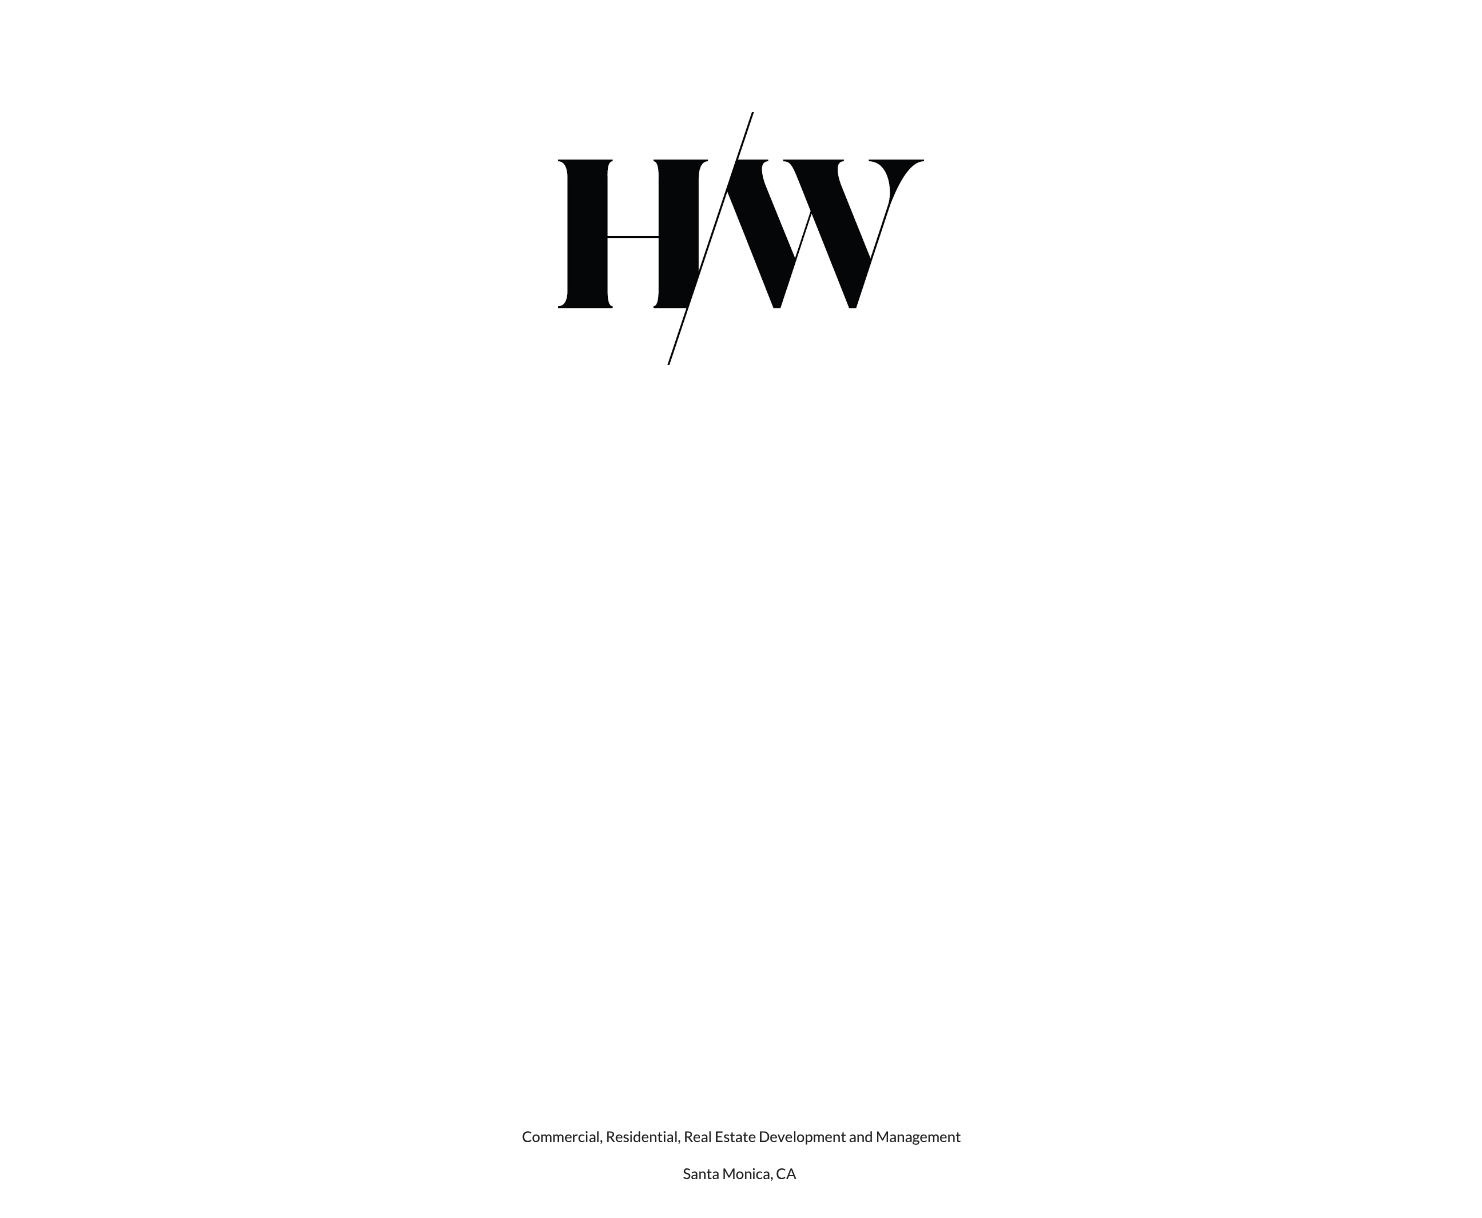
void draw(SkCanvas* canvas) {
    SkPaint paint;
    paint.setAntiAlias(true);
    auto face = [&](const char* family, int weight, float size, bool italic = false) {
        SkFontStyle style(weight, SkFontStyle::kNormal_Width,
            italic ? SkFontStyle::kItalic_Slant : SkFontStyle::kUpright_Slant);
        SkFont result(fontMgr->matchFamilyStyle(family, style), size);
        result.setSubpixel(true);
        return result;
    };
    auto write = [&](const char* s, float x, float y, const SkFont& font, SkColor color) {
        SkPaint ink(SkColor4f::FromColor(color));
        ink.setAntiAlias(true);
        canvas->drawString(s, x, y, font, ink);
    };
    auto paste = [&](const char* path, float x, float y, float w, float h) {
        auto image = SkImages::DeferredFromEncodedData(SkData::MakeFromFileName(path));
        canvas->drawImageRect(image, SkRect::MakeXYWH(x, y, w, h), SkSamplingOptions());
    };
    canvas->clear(SK_ColorWHITE);
    paste("pic1.png", 558, 112, 366, 253);
    auto kFont1 = face("Lato", 400, 14.7f);
    write("Commercial, Residential, Real Estate Development and Management", 522, 1142, kFont1, SkColorSetRGB(33, 33, 33));
    write("Santa Monica, CA", 683, 1179, kFont1, SkColorSetRGB(33, 33, 33));
}
